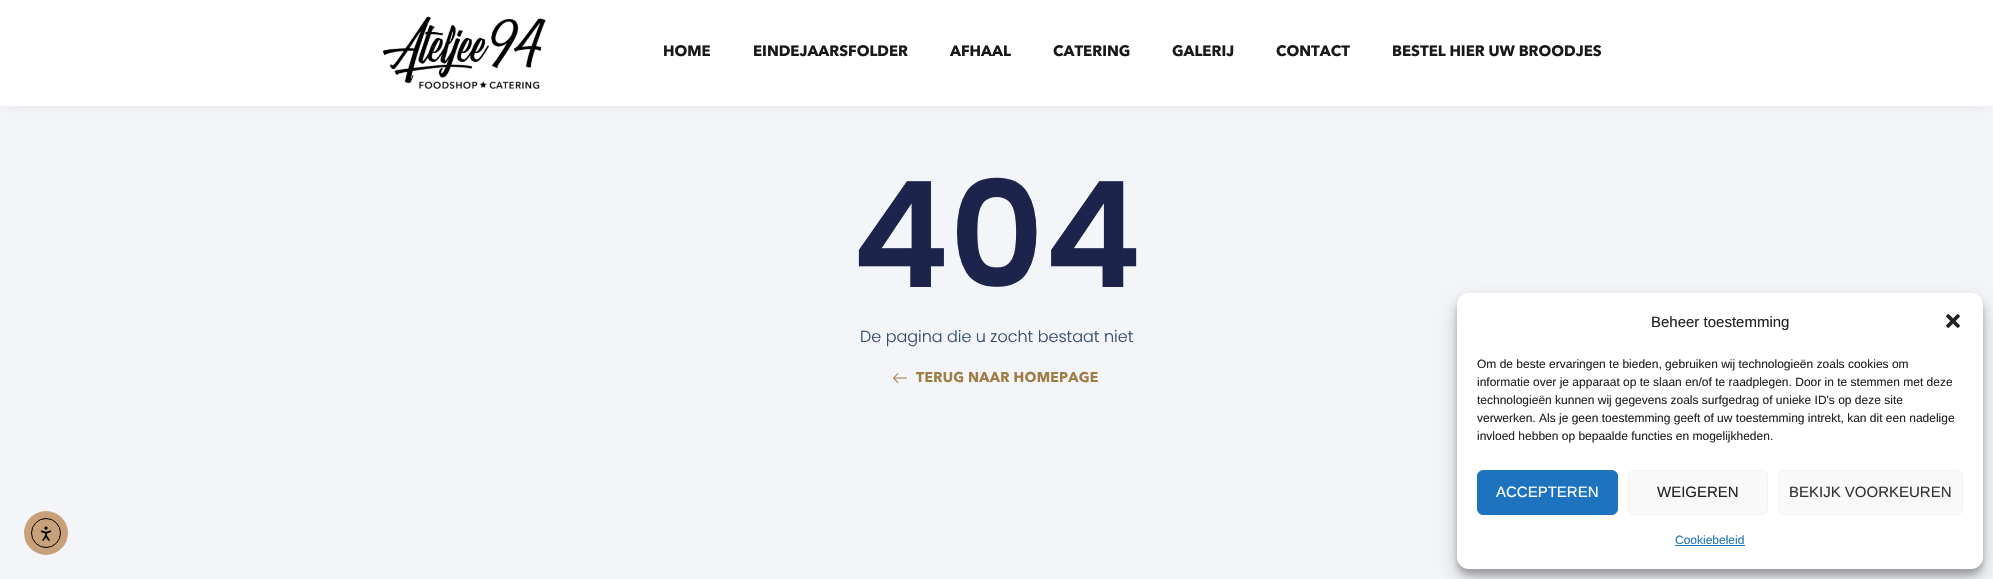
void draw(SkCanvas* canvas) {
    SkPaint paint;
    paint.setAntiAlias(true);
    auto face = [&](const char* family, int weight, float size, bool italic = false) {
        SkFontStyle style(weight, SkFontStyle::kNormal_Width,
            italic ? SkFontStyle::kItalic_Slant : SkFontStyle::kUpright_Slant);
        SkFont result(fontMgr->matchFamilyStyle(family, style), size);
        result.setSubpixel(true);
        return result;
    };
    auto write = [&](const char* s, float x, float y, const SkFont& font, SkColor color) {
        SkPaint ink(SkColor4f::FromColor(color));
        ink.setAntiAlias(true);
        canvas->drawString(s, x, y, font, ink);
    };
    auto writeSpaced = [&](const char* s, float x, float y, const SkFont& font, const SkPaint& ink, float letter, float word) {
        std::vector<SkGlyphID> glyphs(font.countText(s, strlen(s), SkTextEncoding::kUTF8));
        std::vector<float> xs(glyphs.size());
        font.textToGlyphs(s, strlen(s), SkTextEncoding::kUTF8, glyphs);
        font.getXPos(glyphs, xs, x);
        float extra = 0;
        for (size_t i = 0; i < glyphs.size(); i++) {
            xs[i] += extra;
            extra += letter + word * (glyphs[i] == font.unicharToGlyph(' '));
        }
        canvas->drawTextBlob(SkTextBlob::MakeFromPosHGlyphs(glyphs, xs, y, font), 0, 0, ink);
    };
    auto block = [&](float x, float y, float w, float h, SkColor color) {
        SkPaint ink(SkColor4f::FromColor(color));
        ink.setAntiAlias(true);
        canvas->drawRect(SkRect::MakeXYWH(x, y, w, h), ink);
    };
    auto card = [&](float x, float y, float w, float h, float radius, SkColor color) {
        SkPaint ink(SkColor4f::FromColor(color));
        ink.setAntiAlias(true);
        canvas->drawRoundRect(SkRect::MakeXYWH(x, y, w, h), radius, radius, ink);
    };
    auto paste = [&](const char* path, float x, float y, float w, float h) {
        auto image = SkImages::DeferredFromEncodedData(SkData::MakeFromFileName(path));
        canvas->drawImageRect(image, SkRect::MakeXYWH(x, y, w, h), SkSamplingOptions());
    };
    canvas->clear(SkColorSetRGB(243, 245, 248));
    paint.setColor(SkColorSetARGB(54, 0, 0, 0));
    paint.setMaskFilter(SkMaskFilter::MakeBlur(kNormal_SkBlurStyle, 7.5f));
    canvas->drawRect(SkRect::MakeXYWH(7, 7, 1979, 92), paint);
    paint.setMaskFilter(nullptr);
    block(0, 0, 1993, 106, SK_ColorWHITE);
    paste("pic1.png", 382, 16, 164, 73);
    auto kFont1 = face("Avenir Next", 700, 15);
    write("HOME", 663, 56, kFont1, SkColorSetRGB(26, 25, 25));
    write("EINDEJAARSFOLDER", 753, 56, kFont1, SkColorSetRGB(26, 25, 25));
    write("AFHAAL", 950, 56, kFont1, SkColorSetRGB(26, 25, 25));
    write("CATERING", 1053, 56, kFont1, SkColorSetRGB(26, 25, 25));
    write("GALERIJ", 1172, 56, kFont1, SkColorSetRGB(26, 25, 25));
    write("CONTACT", 1276, 56, kFont1, SkColorSetRGB(26, 25, 25));
    write("BESTEL HIER UW BROODJES", 1392, 56, kFont1, SkColorSetRGB(26, 25, 25));
    auto kFont2 = face("Poppins", 600, 147);
    write("404", 852, 287, kFont2, SkColorSetRGB(28, 36, 75));
    auto kFont3 = face("Poppins", 300, 16);
    write("De pagina die u zocht bestaat niet", 860, 342, kFont3, SkColorSetRGB(50, 74, 109));
    paste("pic2.png", 893, 373, 14, 10);
    auto kFont4 = face("Avenir Next", 700, 14);
    paint.setColor(SkColorSetRGB(158, 126, 69));
    writeSpaced("TERUG NAAR HOMEPAGE", 916, 382, kFont4, paint, 0.25f, 0);
    paint.setColor(SkColorSetRGB(199, 161, 122));
    canvas->drawCircle(46, 533, 22, paint);
    paint.setStyle(SkPaint::kStroke_Style);
    paint.setStrokeWidth(1);
    paint.setColor(SK_ColorBLACK);
    canvas->drawCircle(46, 533, 14.5f, paint);
    paste("pic3.png", 40, 526, 12, 15);
    paint.setStyle(SkPaint::kFill_Style);
    paint.setColor(SkColorSetARGB(59, 0, 0, 0));
    paint.setMaskFilter(SkMaskFilter::MakeBlur(kNormal_SkBlurStyle, 3));
    canvas->drawRoundRect(SkRect::MakeXYWH(1457, 299, 526, 276), 12, 12, paint);
    paint.setMaskFilter(nullptr);
    paint.setColor(SkColorSetARGB(48, 0, 0, 0));
    paint.setMaskFilter(SkMaskFilter::MakeBlur(kNormal_SkBlurStyle, 10));
    canvas->drawRoundRect(SkRect::MakeXYWH(1457, 303, 526, 276), 12, 12, paint);
    paint.setMaskFilter(nullptr);
    card(1457, 293, 526, 276, 12, SK_ColorWHITE);
    auto kFont5 = face("Liberation Sans", 400, 15);
    write("Beheer toestemming", 1651, 327, kFont5, SkColorSetRGB(34, 34, 34));
    paste("pic4.png", 1946, 314, 14, 14);
    auto kFont6 = face("Liberation Sans", 400, 12);
    write("Om de beste ervaringen te bieden, gebruiken wij technologieën zoals cookies om", 1477, 368, kFont6, SkColorSetRGB(34, 34, 34));
    write("informatie over je apparaat op te slaan en/of te raadplegen. Door in te stemmen met deze", 1477, 386, kFont6, SkColorSetRGB(34, 34, 34));
    write("technologieën kunnen wij gegevens zoals surfgedrag of unieke ID's op deze site", 1477, 404, kFont6, SkColorSetRGB(34, 34, 34));
    write("verwerken. Als je geen toestemming geeft of uw toestemming intrekt, kan dit een nadelige", 1477, 422, kFont6, SkColorSetRGB(34, 34, 34));
    write("invloed hebben op bepaalde functies en mogelijkheden.", 1477, 440, kFont6, SkColorSetRGB(34, 34, 34));
    paint.setColor(SkColorSetRGB(30, 115, 190));
    canvas->drawRoundRect(SkRect::MakeXYWH(1477.5f, 470.5f, 140, 44), 5.5f, 5.5f, paint);
    paint.setStyle(SkPaint::kStroke_Style);
    canvas->drawRoundRect(SkRect::MakeXYWH(1477.5f, 470.5f, 140, 44), 5.5f, 5.5f, paint);
    write("ACCEPTEREN", 1496, 497, kFont5, SK_ColorWHITE);
    paint.setStyle(SkPaint::kFill_Style);
    paint.setColor(SkColorSetRGB(249, 249, 249));
    canvas->drawRoundRect(SkRect::MakeXYWH(1628.5f, 470.5f, 139, 44), 5.5f, 5.5f, paint);
    paint.setStyle(SkPaint::kStroke_Style);
    paint.setColor(SkColorSetRGB(242, 242, 242));
    canvas->drawRoundRect(SkRect::MakeXYWH(1628.5f, 470.5f, 139, 44), 5.5f, 5.5f, paint);
    write("WEIGEREN", 1657, 497, kFont5, SkColorSetRGB(34, 34, 34));
    paint.setStyle(SkPaint::kFill_Style);
    paint.setColor(SkColorSetRGB(249, 249, 249));
    canvas->drawRoundRect(SkRect::MakeXYWH(1778.5f, 470.5f, 184, 44), 5.5f, 5.5f, paint);
    paint.setStyle(SkPaint::kStroke_Style);
    paint.setColor(SkColorSetRGB(242, 242, 242));
    canvas->drawRoundRect(SkRect::MakeXYWH(1778.5f, 470.5f, 184, 44), 5.5f, 5.5f, paint);
    write("BEKIJK VOORKEUREN", 1789, 497, kFont5, SkColorSetRGB(51, 51, 51));
    write("Cookiebeleid", 1675, 544, kFont6, SkColorSetRGB(30, 115, 190));
    block(1675, 545, 70, 1, SkColorSetRGB(30, 115, 190));
}
